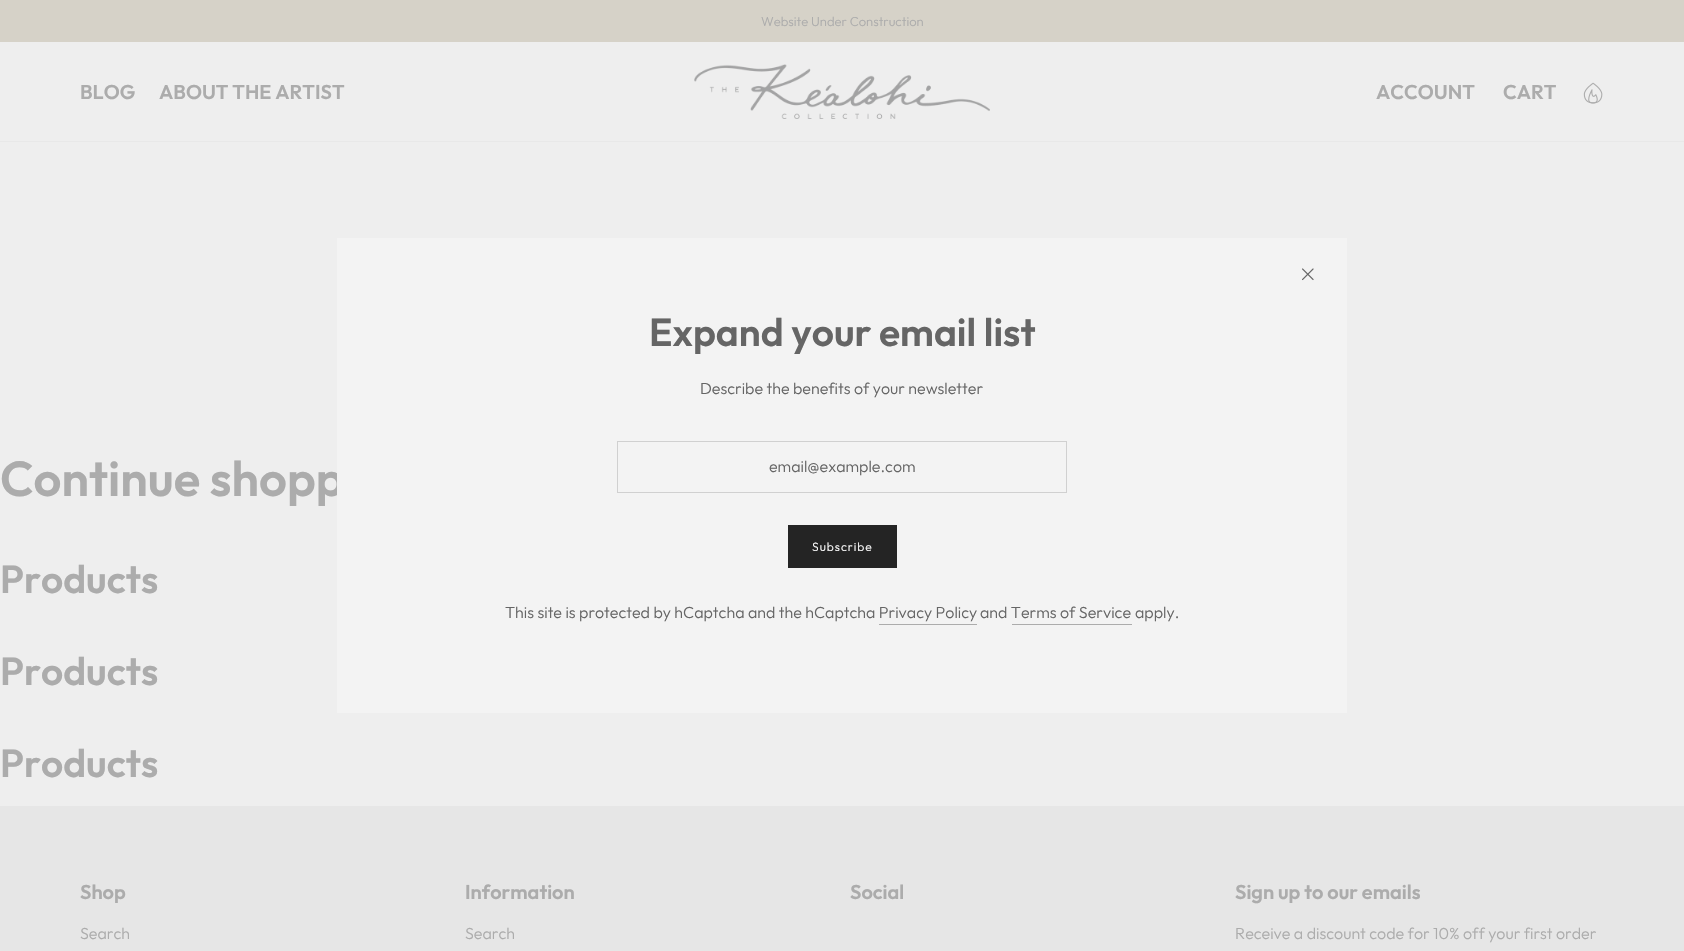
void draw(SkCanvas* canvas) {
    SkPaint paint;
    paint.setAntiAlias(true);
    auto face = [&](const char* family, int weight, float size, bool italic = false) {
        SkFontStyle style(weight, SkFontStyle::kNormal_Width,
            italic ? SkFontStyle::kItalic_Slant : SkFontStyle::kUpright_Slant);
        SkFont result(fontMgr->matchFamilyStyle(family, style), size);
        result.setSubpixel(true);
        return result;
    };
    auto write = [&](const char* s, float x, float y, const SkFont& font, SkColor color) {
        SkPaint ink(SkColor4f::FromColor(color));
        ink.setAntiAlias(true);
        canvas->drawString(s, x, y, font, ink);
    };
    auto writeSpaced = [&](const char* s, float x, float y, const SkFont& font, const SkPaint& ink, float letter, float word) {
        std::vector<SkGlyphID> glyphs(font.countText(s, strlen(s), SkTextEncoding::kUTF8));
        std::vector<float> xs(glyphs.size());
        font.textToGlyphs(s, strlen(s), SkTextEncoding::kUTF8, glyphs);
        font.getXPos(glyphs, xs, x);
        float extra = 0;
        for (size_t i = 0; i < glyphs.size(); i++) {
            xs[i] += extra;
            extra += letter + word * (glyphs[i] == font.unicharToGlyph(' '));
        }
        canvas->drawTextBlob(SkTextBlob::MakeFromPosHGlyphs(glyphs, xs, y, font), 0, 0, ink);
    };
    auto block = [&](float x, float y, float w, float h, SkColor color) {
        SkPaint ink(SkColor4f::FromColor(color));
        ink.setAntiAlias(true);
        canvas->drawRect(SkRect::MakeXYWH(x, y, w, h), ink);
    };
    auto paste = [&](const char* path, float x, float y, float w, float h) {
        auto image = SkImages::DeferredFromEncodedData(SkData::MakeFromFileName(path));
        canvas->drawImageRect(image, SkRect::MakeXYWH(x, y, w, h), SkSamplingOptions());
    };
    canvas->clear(SkColorSetRGB(238, 238, 238));
    block(0, 0, 1684, 42, SkColorSetRGB(214, 210, 200));
    auto kFont1 = face("Outfit", 300, 13);
    write("Website Under Construction", 761, 26, kFont1, SkColorSetRGB(172, 172, 172));
    block(0, 141, 1684, 1, SkColorSetRGB(232, 232, 232));
    auto kFont2 = face("Outfit", 600, 20);
    write("BLOG", 80, 99, kFont2, SkColorSetRGB(172, 172, 172));
    write("ABOUT THE ARTIST", 159, 99, kFont2, SkColorSetRGB(172, 172, 172));
    paste("pic1.png", 694, 64, 296, 55);
    write("ACCOUNT", 1376, 99, kFont2, SkColorSetRGB(172, 172, 172));
    write("CART", 1503, 99, kFont2, SkColorSetRGB(172, 172, 172));
    paste("pic2.png", 1583, 82, 20, 22);
    auto kFont3 = face("Outfit", 600, 49);
    write("Continue shopp", 0, 496, kFont3, SkColorSetRGB(172, 172, 172));
    auto kFont4 = face("Outfit", 600, 39);
    write("Products", 0, 593, kFont4, SkColorSetRGB(172, 172, 172));
    write("Products", 0, 685, kFont4, SkColorSetRGB(172, 172, 172));
    write("Products", 0, 777, kFont4, SkColorSetRGB(172, 172, 172));
    block(337, 238, 1010, 475, SkColorSetRGB(243, 243, 243));
    paste("pic3.png", 1302, 268, 12, 13);
    write("Expand your email list", 649, 346, kFont4, SkColorSetRGB(101, 101, 101));
    auto kFont5 = face("Outfit", 300, 16);
    write("Describe the benefits of your newsletter", 700, 394, kFont5, SkColorSetRGB(101, 101, 101));
    paint.setStyle(SkPaint::kStroke_Style);
    paint.setStrokeWidth(1);
    paint.setColor(SkColorSetRGB(208, 208, 208));
    canvas->drawRect(SkRect::MakeXYWH(617.5f, 441.5f, 449, 51), paint);
    write("email@example.com", 769, 472, kFont5, SkColorSetRGB(101, 101, 101));
    block(788, 525, 109, 43, SkColorSetRGB(36, 36, 36));
    auto kFont6 = face("Outfit", 300, 12);
    paint.setStyle(SkPaint::kFill_Style);
    paint.setColor(SK_ColorWHITE);
    writeSpaced("Subscribe", 812, 551, kFont6, paint, 1, 0);
    write("This site is protected by hCaptcha and the hCaptcha Privacy Policy", 505, 618, kFont5, SkColorSetRGB(101, 101, 101));
    write("and Terms of Service", 980, 618, kFont5, SkColorSetRGB(101, 101, 101));
    write("apply.", 1135, 618, kFont5, SkColorSetRGB(101, 101, 101));
    block(879, 624, 98, 1, SkColorSetRGB(172, 172, 172));
    block(1012, 624, 120, 1, SkColorSetRGB(172, 172, 172));
    block(0, 806, 1684, 145, SkColorSetRGB(230, 230, 230));
    write("Shop", 80, 899, kFont2, SkColorSetRGB(172, 172, 172));
    write("Search", 80, 939, kFont5, SkColorSetRGB(172, 172, 172));
    write("Information", 465, 899, kFont2, SkColorSetRGB(172, 172, 172));
    write("Search", 465, 939, kFont5, SkColorSetRGB(172, 172, 172));
    write("Social", 850, 899, kFont2, SkColorSetRGB(172, 172, 172));
    write("Sign up to our emails", 1235, 899, kFont2, SkColorSetRGB(172, 172, 172));
    write("Receive a discount code for 10% off your first order", 1235, 939, kFont5, SkColorSetRGB(172, 172, 172));
}
